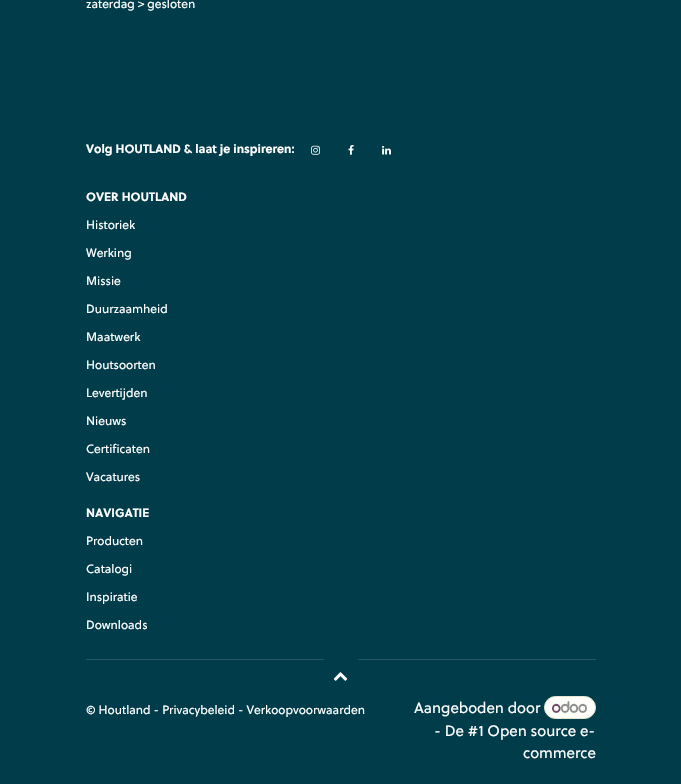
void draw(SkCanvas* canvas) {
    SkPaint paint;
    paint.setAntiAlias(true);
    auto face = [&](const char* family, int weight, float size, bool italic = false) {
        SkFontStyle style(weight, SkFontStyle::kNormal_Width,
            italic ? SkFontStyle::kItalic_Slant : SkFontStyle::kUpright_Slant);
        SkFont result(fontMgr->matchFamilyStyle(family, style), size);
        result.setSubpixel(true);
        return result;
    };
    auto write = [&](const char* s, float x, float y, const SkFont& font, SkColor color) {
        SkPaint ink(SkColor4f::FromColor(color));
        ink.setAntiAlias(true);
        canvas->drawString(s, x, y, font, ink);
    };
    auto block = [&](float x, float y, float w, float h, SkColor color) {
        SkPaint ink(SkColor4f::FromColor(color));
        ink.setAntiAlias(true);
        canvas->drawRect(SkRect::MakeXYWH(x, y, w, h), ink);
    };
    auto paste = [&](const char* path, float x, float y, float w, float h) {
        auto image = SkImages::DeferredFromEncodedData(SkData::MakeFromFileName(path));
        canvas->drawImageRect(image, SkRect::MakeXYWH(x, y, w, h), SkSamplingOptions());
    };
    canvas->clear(SkColorSetRGB(0, 60, 74));
    auto kFont1 = face("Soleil", 400, 12);
    write("zaterdag > gesloten", 86, 8, kFont1, SK_ColorWHITE);
    auto kFont2 = face("Soleil", 700, 12);
    write("Volg HOUTLAND & laat je inspireren:", 86, 153, kFont2, SK_ColorWHITE);
    paste("pic1.png", 311, 145, 9, 10);
    paste("pic2.png", 348, 145, 6, 10);
    paste("pic3.png", 382, 145, 9, 10);
    write("OVER HOUTLAND", 86, 201, kFont2, SK_ColorWHITE);
    write("Historiek", 86, 229, kFont1, SK_ColorWHITE);
    write("Werking", 86, 257, kFont1, SK_ColorWHITE);
    write("Missie", 86, 285, kFont1, SK_ColorWHITE);
    write("Duurzaamheid", 86, 313, kFont1, SK_ColorWHITE);
    write("Maatwerk", 86, 341, kFont1, SK_ColorWHITE);
    write("Houtsoorten", 86, 369, kFont1, SK_ColorWHITE);
    write("Levertijden", 86, 397, kFont1, SK_ColorWHITE);
    write("Nieuws", 86, 425, kFont1, SK_ColorWHITE);
    write("Certificaten", 86, 453, kFont1, SK_ColorWHITE);
    write("Vacatures", 86, 481, kFont1, SK_ColorWHITE);
    write("NAVIGATIE", 86, 517, kFont2, SK_ColorWHITE);
    write("Producten", 86, 545, kFont1, SK_ColorWHITE);
    write("Catalogi", 86, 573, kFont1, SK_ColorWHITE);
    write("Inspiratie", 86, 601, kFont1, SK_ColorWHITE);
    write("Downloads", 86, 629, kFont1, SK_ColorWHITE);
    block(86, 659, 510, 1, SkColorSetRGB(38, 89, 101));
    paint.setColor(SkColorSetRGB(0, 60, 74));
    canvas->drawCircle(341, 676, 24, paint);
    paste("pic4.png", 333, 672, 15, 9);
    write("© Houtland - Privacybeleid - Verkoopvoorwaarden", 86, 714, kFont1, SK_ColorWHITE);
    auto kFont3 = face("Soleil", 400, 15);
    write("Aangeboden door", 414, 713, kFont3, SK_ColorWHITE);
    paint.setColor(SkColorSetRGB(253, 253, 250));
    canvas->drawRoundRect(SkRect::MakeXYWH(544.5f, 696.5f, 51, 22), 11, 11, paint);
    paint.setStyle(SkPaint::kStroke_Style);
    paint.setStrokeWidth(1);
    paint.setColor(SkColorSetRGB(232, 230, 209));
    canvas->drawRoundRect(SkRect::MakeXYWH(544.5f, 696.5f, 51, 22), 11, 11, paint);
    paste("pic5.png", 552, 701, 35, 12);
    write("- De #1 Open source e-", 434, 736, kFont3, SK_ColorWHITE);
    write("commerce", 523, 758, kFont3, SK_ColorWHITE);
}
